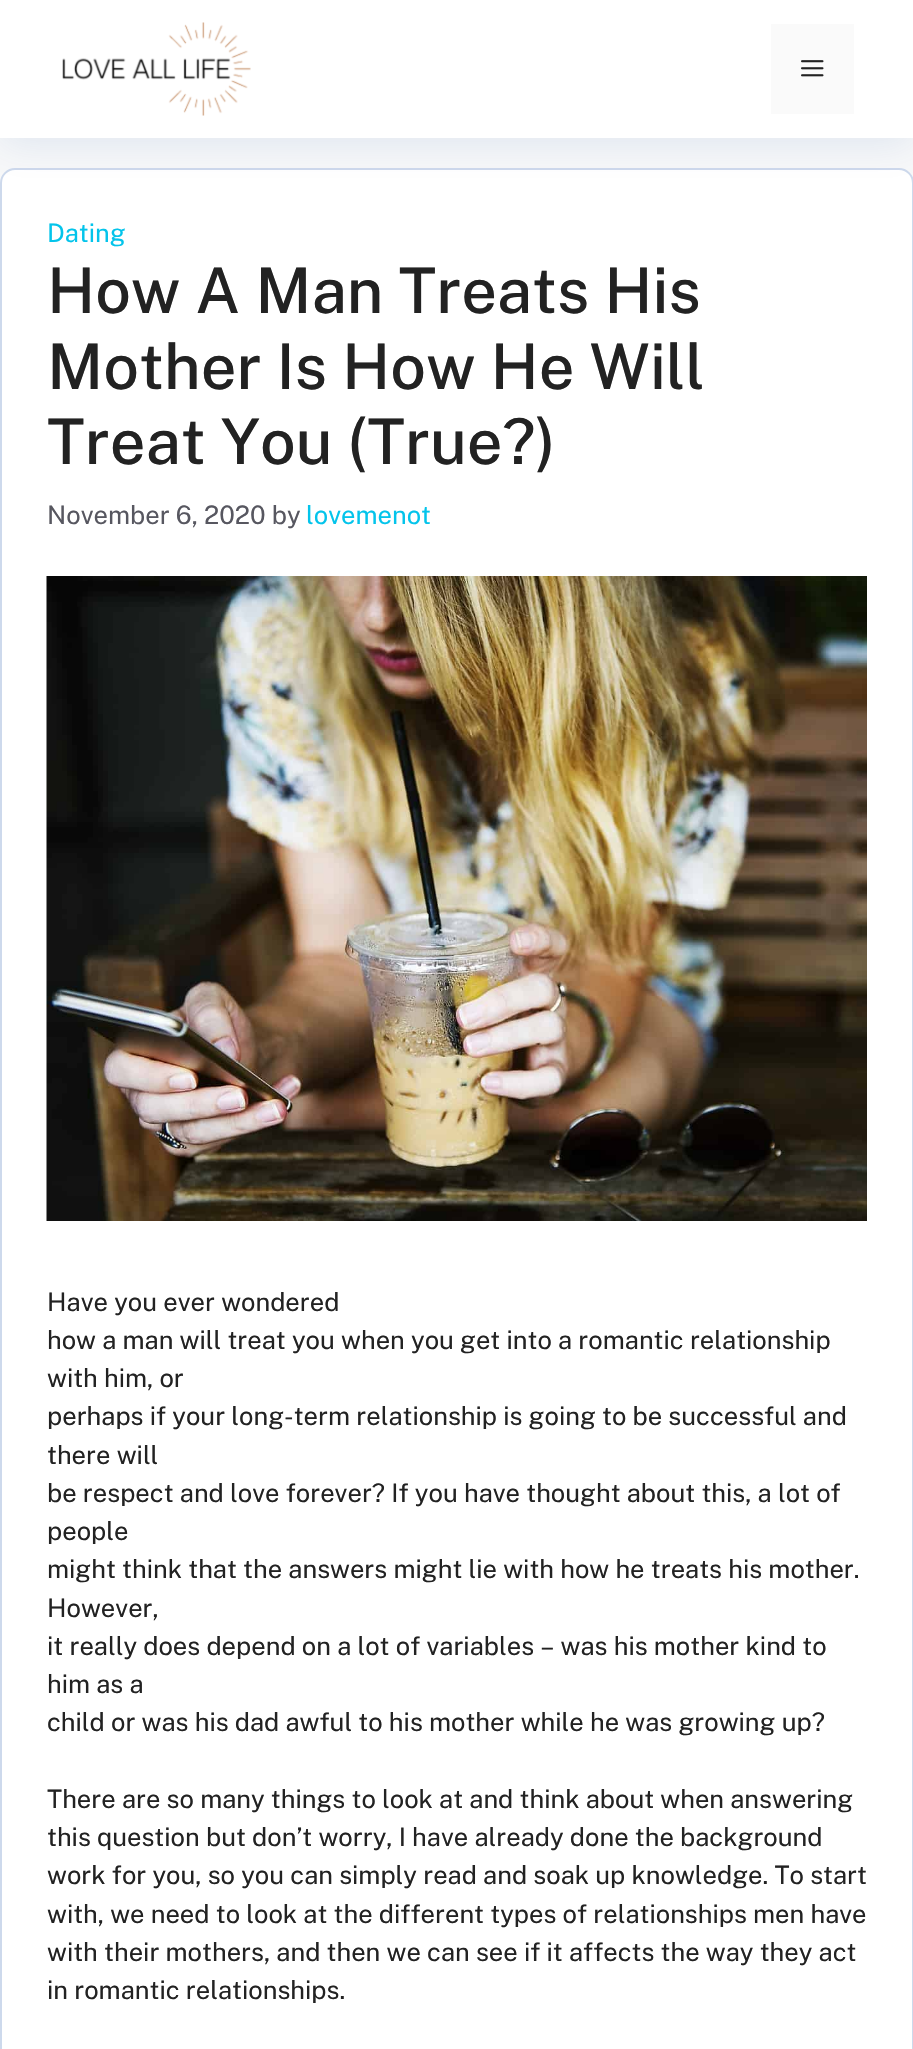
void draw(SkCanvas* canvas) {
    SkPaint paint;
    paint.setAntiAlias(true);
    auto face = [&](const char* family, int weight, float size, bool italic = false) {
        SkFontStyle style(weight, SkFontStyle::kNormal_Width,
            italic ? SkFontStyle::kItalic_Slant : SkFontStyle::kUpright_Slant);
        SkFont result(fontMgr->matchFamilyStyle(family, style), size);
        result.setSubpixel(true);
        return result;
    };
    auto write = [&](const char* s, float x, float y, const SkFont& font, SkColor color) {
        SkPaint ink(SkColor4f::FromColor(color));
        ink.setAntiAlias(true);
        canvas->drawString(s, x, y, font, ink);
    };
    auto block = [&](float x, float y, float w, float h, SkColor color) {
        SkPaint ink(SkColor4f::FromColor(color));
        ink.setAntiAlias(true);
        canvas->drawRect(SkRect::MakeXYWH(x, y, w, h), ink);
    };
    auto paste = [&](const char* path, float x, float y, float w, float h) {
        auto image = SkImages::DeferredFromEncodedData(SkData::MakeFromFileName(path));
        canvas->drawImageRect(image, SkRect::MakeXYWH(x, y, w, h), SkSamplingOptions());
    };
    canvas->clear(SkColorSetRGB(247, 248, 249));
    paint.setColor(SK_ColorWHITE);
    canvas->drawRoundRect(SkRect::MakeXYWH(1, 169, 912, 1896), 14, 14, paint);
    paint.setStyle(SkPaint::kStroke_Style);
    paint.setStrokeWidth(2);
    paint.setColor(SkColorSetRGB(205, 217, 236));
    canvas->drawRoundRect(SkRect::MakeXYWH(1, 169, 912, 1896), 14, 14, paint);
    paint.setStyle(SkPaint::kFill_Style);
    paint.setColor(SkColorSetARGB(26, 7, 71, 160));
    paint.setMaskFilter(SkMaskFilter::MakeBlur(kNormal_SkBlurStyle, 19));
    canvas->drawRect(SkRect::MakeXYWH(0, 6, 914, 138), paint);
    paint.setMaskFilter(nullptr);
    block(0, 0, 913, 138, SK_ColorWHITE);
    paste("pic1.png", 62, 22, 189, 94);
    block(771, 24, 83, 90, SkColorSetRGB(250, 250, 250));
    paste("pic2.png", 801, 60, 23, 17);
    auto kFont1 = face("Public Sans", 400, 25.5f);
    write("Dating", 47, 242, kFont1, SkColorSetRGB(3, 196, 235));
    auto kFont2 = face("Public Sans", 500, 63);
    write("How A Man Treats His", 47, 313, kFont2, SkColorSetRGB(34, 34, 34));
    write("Mother Is How He Will", 47, 389, kFont2, SkColorSetRGB(34, 34, 34));
    write("Treat You (True?)", 47, 464, kFont2, SkColorSetRGB(34, 34, 34));
    write("November 6, 2020 by", 47, 524, kFont1, SkColorSetRGB(87, 87, 96));
    write("lovemenot", 306, 524, kFont1, SkColorSetRGB(3, 196, 235));
    paste("pic3.png", 46, 576, 821, 645);
    write("Have you ever wondered", 47, 1311, kFont1, SkColorSetRGB(34, 34, 34));
    write("how a man will treat you when you get into a romantic relationship", 47, 1349, kFont1, SkColorSetRGB(34, 34, 34));
    write("with him, or", 47, 1387, kFont1, SkColorSetRGB(34, 34, 34));
    write("perhaps if your long-term relationship is going to be successful and", 47, 1425, kFont1, SkColorSetRGB(34, 34, 34));
    write("there will", 47, 1464, kFont1, SkColorSetRGB(34, 34, 34));
    write("be respect and love forever? If you have thought about this, a lot of", 47, 1502, kFont1, SkColorSetRGB(34, 34, 34));
    write("people", 47, 1540, kFont1, SkColorSetRGB(34, 34, 34));
    write("might think that the answers might lie with how he treats his mother.", 47, 1578, kFont1, SkColorSetRGB(34, 34, 34));
    write("However,", 47, 1617, kFont1, SkColorSetRGB(34, 34, 34));
    write("it really does depend on a lot of variables – was his mother kind to", 47, 1655, kFont1, SkColorSetRGB(34, 34, 34));
    write("him as a", 47, 1693, kFont1, SkColorSetRGB(34, 34, 34));
    write("child or was his dad awful to his mother while he was growing up?", 47, 1731, kFont1, SkColorSetRGB(34, 34, 34));
    write("There are so many things to look at and think about when answering", 47, 1808, kFont1, SkColorSetRGB(34, 34, 34));
    write("this question but don’t worry, I have already done the background", 47, 1846, kFont1, SkColorSetRGB(34, 34, 34));
    write("work for you, so you can simply read and soak up knowledge. To start", 47, 1884, kFont1, SkColorSetRGB(34, 34, 34));
    write("with, we need to look at the different types of relationships men have", 47, 1923, kFont1, SkColorSetRGB(34, 34, 34));
    write("with their mothers, and then we can see if it affects the way they act", 47, 1961, kFont1, SkColorSetRGB(34, 34, 34));
    write("in romantic relationships.", 47, 1999, kFont1, SkColorSetRGB(34, 34, 34));
}
